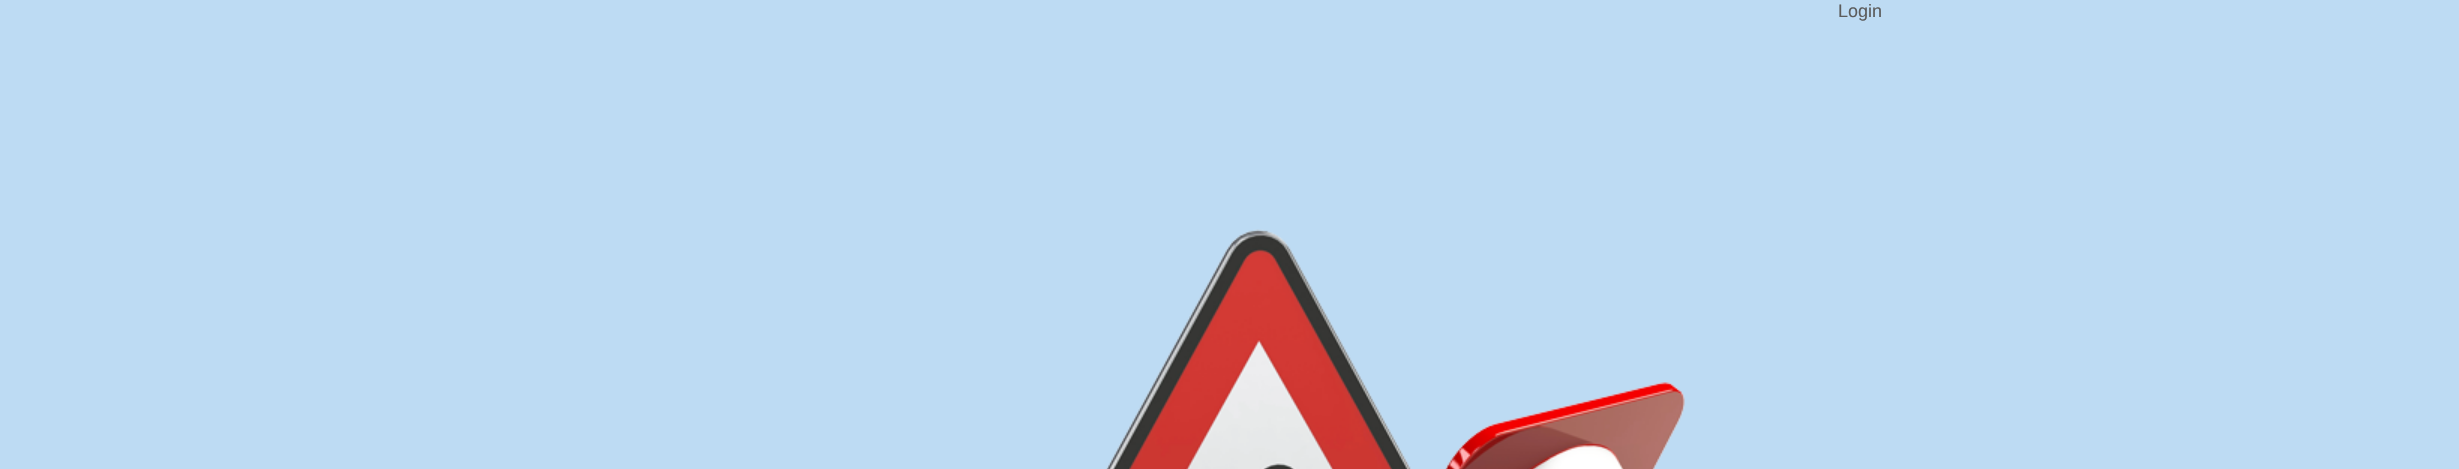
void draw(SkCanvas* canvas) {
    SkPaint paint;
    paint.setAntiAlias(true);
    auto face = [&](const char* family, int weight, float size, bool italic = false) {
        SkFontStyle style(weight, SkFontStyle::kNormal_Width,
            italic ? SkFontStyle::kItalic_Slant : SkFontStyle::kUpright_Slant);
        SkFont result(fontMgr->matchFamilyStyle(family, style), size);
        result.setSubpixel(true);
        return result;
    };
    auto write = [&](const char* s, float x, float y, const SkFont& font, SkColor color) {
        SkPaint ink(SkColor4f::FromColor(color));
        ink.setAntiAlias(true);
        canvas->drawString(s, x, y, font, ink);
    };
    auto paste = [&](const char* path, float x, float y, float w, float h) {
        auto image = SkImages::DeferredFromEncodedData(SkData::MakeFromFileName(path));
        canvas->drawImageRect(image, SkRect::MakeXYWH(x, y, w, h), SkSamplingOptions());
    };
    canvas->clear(SkColorSetRGB(189, 219, 243));
    auto kFont1 = face("Liberation Sans", 400, 18);
    write("Login", 1838, 17, kFont1, SkColorSetRGB(92, 92, 92));
    paste("pic1.png", 1106, 229, 579, 240);
}
